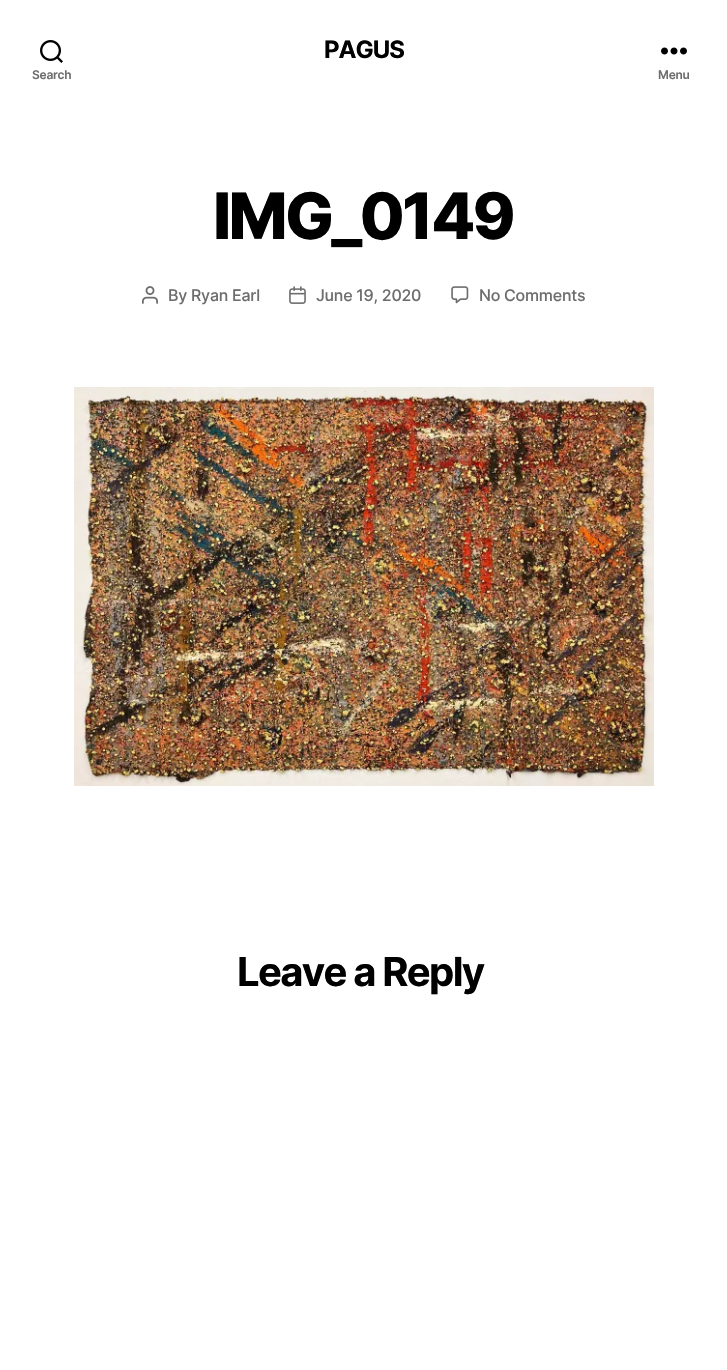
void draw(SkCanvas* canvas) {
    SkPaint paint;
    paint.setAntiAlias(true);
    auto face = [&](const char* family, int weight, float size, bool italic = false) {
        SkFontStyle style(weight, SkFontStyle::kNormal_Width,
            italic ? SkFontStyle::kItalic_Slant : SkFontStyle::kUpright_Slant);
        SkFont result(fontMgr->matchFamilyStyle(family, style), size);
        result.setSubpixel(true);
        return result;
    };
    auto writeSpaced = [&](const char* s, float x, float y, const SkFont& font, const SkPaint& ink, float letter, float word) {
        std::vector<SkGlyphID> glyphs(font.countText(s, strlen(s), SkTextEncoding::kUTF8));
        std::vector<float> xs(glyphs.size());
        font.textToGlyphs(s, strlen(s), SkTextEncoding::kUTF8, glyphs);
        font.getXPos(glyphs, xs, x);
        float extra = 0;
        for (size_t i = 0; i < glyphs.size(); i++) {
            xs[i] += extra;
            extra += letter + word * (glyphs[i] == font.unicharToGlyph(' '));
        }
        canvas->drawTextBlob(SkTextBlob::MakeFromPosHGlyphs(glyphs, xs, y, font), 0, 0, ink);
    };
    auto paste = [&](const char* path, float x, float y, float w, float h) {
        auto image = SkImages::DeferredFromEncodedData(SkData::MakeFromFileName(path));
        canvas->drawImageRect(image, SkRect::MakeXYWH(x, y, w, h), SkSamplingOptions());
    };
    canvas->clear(SK_ColorWHITE);
    auto kFont1 = face("Inter", 700, 24);
    paint.setColor(SK_ColorBLACK);
    writeSpaced("PAGUS", 324, 58, kFont1, paint, -1, 0);
    paste("pic1.png", 40, 40, 23, 23);
    auto kFont2 = face("Inter", 600, 12);
    paint.setColor(SkColorSetRGB(109, 109, 109));
    writeSpaced("Search", 32, 79, kFont2, paint, -0.25f, 0);
    paste("pic2.png", 661, 47, 26, 8);
    writeSpaced("Menu", 658, 79, kFont2, paint, -0.25f, 0);
    auto kFont3 = face("Inter", 800, 64);
    paint.setColor(SK_ColorBLACK);
    writeSpaced("IMG_0149", 213, 239, kFont3, paint, -2.75f, 0);
    paste("pic3.png", 142, 286, 16, 18);
    auto kFont4 = face("Inter", 500, 16);
    paint.setColor(SkColorSetRGB(109, 109, 109));
    writeSpaced("By Ryan Earl", 168, 301, kFont4, paint, -0.25f, 0);
    paste("pic4.png", 289, 286, 17, 18);
    writeSpaced("June 19, 2020", 316, 301, kFont4, paint, -0.25f, 0);
    paste("pic5.png", 451, 286, 18, 18);
    writeSpaced("No Comments", 479, 301, kFont4, paint, -0.25f, 0);
    paste("pic6.png", 74, 387, 580, 399);
    auto kFont5 = face("Inter", 700, 40);
    paint.setColor(SK_ColorBLACK);
    writeSpaced("Leave a Reply", 237, 986, kFont5, paint, -1.7f, 0);
}
